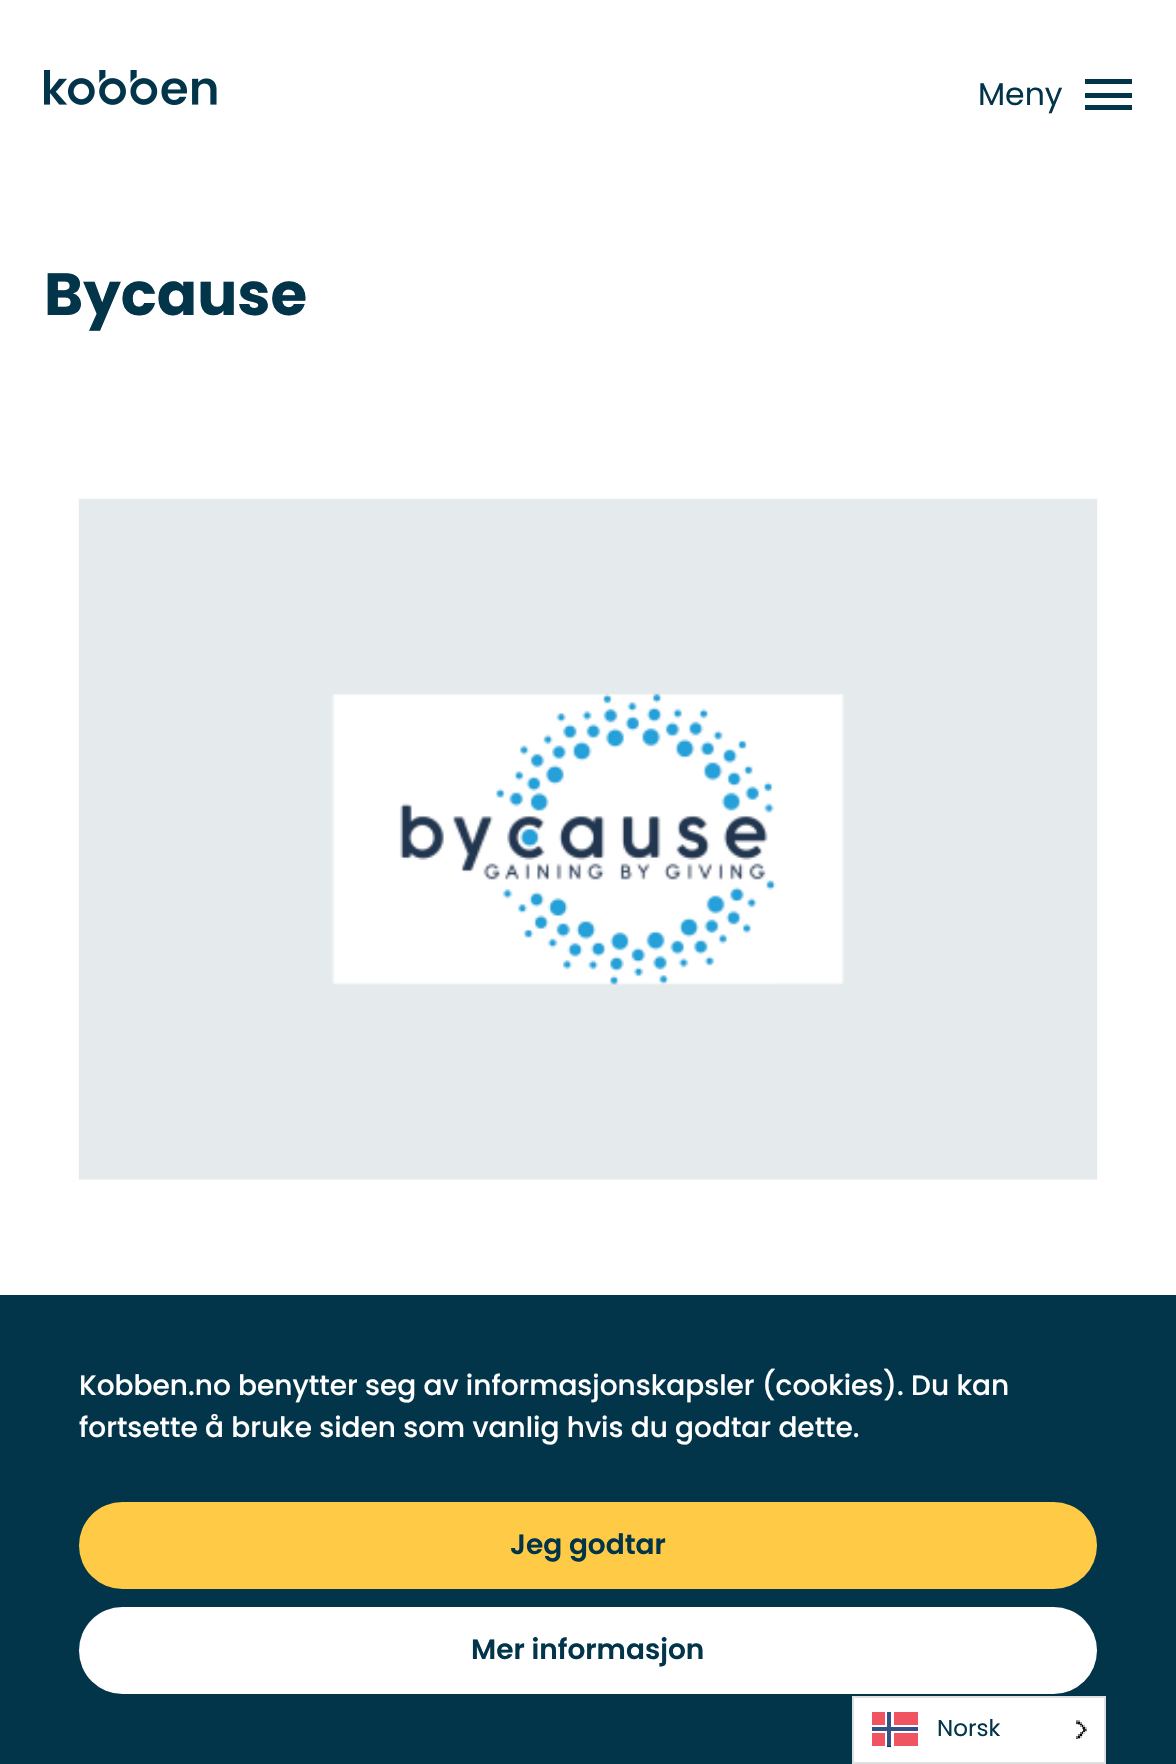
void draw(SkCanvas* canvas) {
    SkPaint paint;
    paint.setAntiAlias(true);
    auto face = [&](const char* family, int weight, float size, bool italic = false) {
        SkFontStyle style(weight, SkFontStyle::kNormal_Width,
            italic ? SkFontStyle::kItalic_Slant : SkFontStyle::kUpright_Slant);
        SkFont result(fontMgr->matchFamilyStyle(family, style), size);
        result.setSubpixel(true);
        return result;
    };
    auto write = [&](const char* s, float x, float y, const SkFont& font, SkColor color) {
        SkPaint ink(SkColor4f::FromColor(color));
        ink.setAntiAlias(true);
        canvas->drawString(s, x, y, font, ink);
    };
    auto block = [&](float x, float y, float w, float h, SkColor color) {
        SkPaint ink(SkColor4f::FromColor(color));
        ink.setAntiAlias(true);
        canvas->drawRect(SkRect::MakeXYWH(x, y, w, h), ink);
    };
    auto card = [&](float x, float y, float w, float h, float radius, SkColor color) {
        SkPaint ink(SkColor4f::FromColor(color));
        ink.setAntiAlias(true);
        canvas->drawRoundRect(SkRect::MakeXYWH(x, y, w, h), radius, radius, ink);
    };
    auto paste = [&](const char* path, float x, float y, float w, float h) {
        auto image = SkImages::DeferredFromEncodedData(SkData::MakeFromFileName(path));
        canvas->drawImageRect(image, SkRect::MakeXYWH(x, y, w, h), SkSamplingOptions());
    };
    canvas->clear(SK_ColorWHITE);
    paste("pic1.png", 44, 70, 173, 35);
    auto kFont1 = face("Poppins", 400, 31.5f);
    write("Meny", 978, 105, kFont1, SkColorSetRGB(2, 52, 74));
    block(1085, 79, 47, 5, SkColorSetRGB(2, 52, 74));
    block(1085, 93, 47, 5, SkColorSetRGB(2, 52, 74));
    block(1085, 105, 47, 5, SkColorSetRGB(2, 52, 74));
    auto kFont2 = face("Poppins", 700, 59.5f);
    write("Bycause", 44, 315, kFont2, SkColorSetRGB(2, 52, 74));
    paste("pic2.png", 78, 498, 1020, 682);
    block(0, 1295, 1176, 469, SkColorSetRGB(2, 52, 74));
    auto kFont3 = face("Poppins", 500, 28);
    write("Kobben.no benytter seg av informasjonskapsler (cookies). Du kan", 79, 1395, kFont3, SK_ColorWHITE);
    write("fortsette å bruke siden som vanlig hvis du godtar dette.", 79, 1437, kFont3, SK_ColorWHITE);
    card(79, 1502, 1018, 87, 43.5f, SkColorSetRGB(255, 202, 69));
    auto kFont4 = face("Poppins", 600, 28);
    write("Jeg godtar", 510, 1554, kFont4, SkColorSetRGB(2, 52, 74));
    card(79, 1607, 1018, 87, 43.5f, SK_ColorWHITE);
    write("Mer informasjon", 471, 1659, kFont4, SkColorSetRGB(2, 52, 74));
    paint.setColor(SK_ColorWHITE);
    canvas->drawRect(SkRect::MakeXYWH(853, 1697, 252, 66), paint);
    paint.setStyle(SkPaint::kStroke_Style);
    paint.setStrokeWidth(2);
    paint.setColor(SkColorSetRGB(224, 224, 224));
    canvas->drawRect(SkRect::MakeXYWH(853, 1697, 252, 66), paint);
    block(872, 1712, 46, 34, SkColorSetRGB(241, 84, 97));
    block(885, 1712, 9, 34, SK_ColorWHITE);
    block(872, 1725, 46, 8, SK_ColorWHITE);
    block(887, 1746, 4, 1, SkColorSetRGB(0, 38, 100));
    block(887, 1712, 4, 34, SkColorSetRGB(51, 81, 131));
    block(872, 1727, 46, 4, SkColorSetRGB(51, 81, 131));
    auto kFont5 = face("Poppins", 400, 23);
    write("Norsk", 937, 1736, kFont5, SkColorSetRGB(2, 52, 74));
    paste("pic3.png", 1076, 1720, 11, 19);
}
